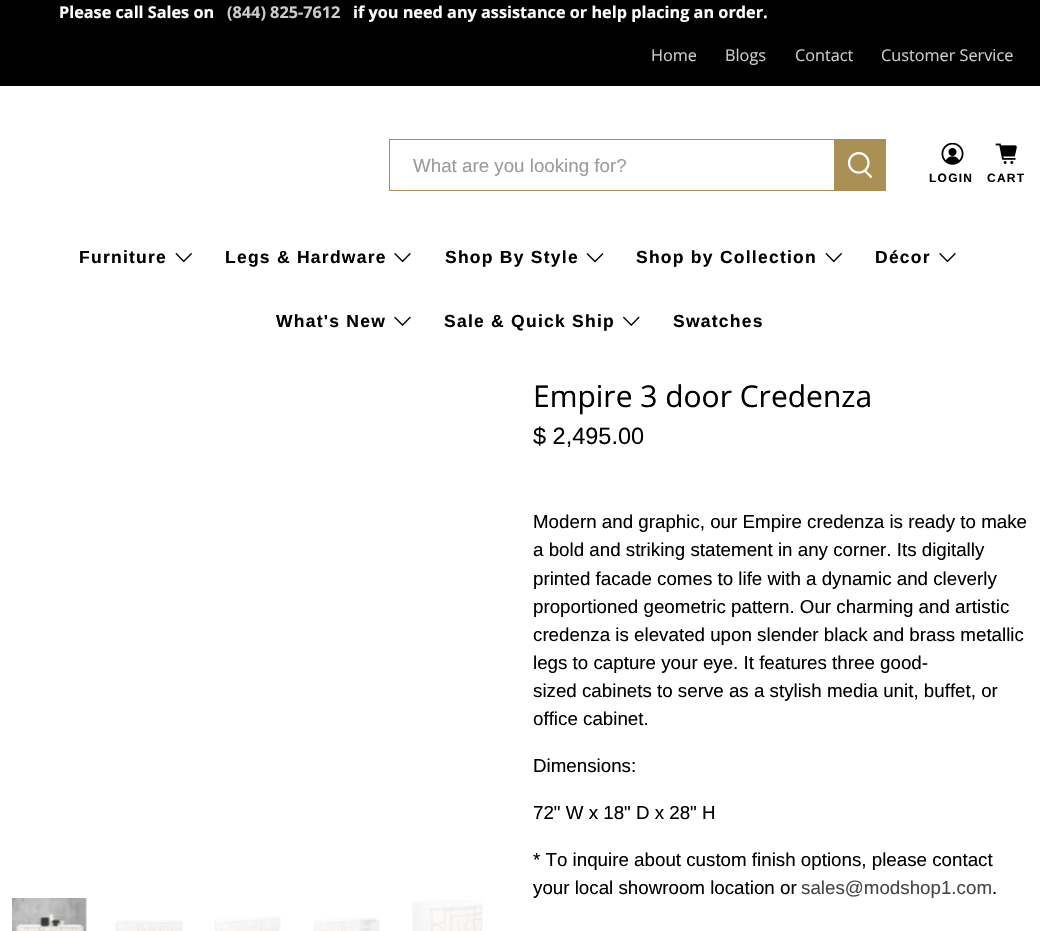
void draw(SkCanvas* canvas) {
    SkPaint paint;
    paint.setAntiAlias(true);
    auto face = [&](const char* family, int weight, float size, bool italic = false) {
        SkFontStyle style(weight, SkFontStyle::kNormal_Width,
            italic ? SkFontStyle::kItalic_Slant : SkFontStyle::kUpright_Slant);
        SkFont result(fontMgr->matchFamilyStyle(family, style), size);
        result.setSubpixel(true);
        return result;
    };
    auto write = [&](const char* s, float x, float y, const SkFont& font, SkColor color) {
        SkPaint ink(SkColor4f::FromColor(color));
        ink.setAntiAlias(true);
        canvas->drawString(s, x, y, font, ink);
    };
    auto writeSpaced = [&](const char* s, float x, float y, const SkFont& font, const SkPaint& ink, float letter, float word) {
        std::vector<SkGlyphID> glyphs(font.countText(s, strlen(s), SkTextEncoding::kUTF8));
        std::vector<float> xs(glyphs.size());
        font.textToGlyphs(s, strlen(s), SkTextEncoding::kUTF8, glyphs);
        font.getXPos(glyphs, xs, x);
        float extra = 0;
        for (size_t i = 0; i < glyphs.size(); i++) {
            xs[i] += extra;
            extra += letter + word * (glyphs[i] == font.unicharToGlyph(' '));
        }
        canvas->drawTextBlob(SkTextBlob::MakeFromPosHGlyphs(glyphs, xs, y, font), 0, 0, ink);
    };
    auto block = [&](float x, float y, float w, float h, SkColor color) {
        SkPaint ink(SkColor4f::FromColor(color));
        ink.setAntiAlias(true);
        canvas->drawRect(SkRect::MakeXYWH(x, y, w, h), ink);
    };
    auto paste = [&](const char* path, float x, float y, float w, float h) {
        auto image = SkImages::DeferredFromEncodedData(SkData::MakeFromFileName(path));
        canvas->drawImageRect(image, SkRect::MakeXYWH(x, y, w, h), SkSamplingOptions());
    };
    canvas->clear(SK_ColorWHITE);
    block(0, 0, 1040, 86, SK_ColorBLACK);
    auto kFont1 = face("Open Sans", 700, 16.25f);
    write("Please call Sales on", 59, 18, kFont1, SK_ColorWHITE);
    write("(844) 825-7612", 227, 18, kFont1, SkColorSetRGB(204, 204, 204));
    write("if you need any assistance or help placing an order.", 353, 18, kFont1, SK_ColorWHITE);
    auto kFont2 = face("Open Sans", 400, 16.25f);
    write("Home", 651, 61, kFont2, SkColorSetRGB(204, 204, 204));
    write("Blogs", 725, 61, kFont2, SkColorSetRGB(204, 204, 204));
    write("Contact", 795, 61, kFont2, SkColorSetRGB(204, 204, 204));
    write("Customer Service", 881, 61, kFont2, SkColorSetRGB(204, 204, 204));
    paint.setStyle(SkPaint::kStroke_Style);
    paint.setStrokeWidth(1);
    paint.setColor(SkColorSetRGB(171, 144, 86));
    canvas->drawRect(SkRect::MakeXYWH(389.5f, 139.5f, 445, 51), paint);
    auto kFont3 = face("Liberation Sans", 400, 18.75f);
    write("What are you looking for?", 413, 172, kFont3, SkColorSetRGB(155, 155, 155));
    block(835, 139, 51, 52, SkColorSetRGB(171, 144, 86));
    paste("pic1.png", 847, 152, 26, 27);
    paste("pic2.png", 941, 143, 23, 22);
    auto kFont4 = face("Liberation Sans", 700, 12);
    paint.setStyle(SkPaint::kFill_Style);
    paint.setColor(SK_ColorBLACK);
    writeSpaced("LOGIN", 929, 182, kFont4, paint, 1.25f, 0);
    paste("pic3.png", 995, 143, 22, 21);
    writeSpaced("CART", 987, 182, kFont4, paint, 1.25f, 0);
    auto kFont5 = face("Liberation Sans", 700, 17.5f);
    writeSpaced("Furniture", 79, 263, kFont5, paint, 1.25f, 0);
    paste("pic4.png", 175, 252, 17, 11);
    writeSpaced("Legs & Hardware", 225, 263, kFont5, paint, 1.25f, 0);
    paste("pic5.png", 394, 252, 17, 11);
    writeSpaced("Shop By Style", 445, 263, kFont5, paint, 1.25f, 0);
    canvas->drawPath(SkPathBuilder().moveTo(595, 262.5f).lineTo(586.5f, 254).lineTo(587.5f, 253).lineTo(595, 260.5f).lineTo(602.5f, 253).lineTo(603.5f, 254).close().detach(), paint);
    writeSpaced("Shop by Collection", 636, 263, kFont5, paint, 1.25f, 0);
    paste("pic4.png", 825, 252, 17, 11);
    writeSpaced("Décor", 875, 263, kFont5, paint, 1.25f, 0);
    paste("pic5.png", 939, 252, 17, 11);
    writeSpaced("What's New", 276, 327, kFont5, paint, 1.25f, 0);
    paste("pic6.png", 394, 316, 17, 10);
    writeSpaced("Sale & Quick Ship", 444, 327, kFont5, paint, 1.25f, 0);
    paste("pic7.png", 623, 316, 17, 10);
    writeSpaced("Swatches", 673, 327, kFont5, paint, 1.25f, 0);
    auto kFont6 = face("Open Sans", 400, 30);
    write("Empire 3 door Credenza", 533, 407, kFont6, SK_ColorBLACK);
    auto kFont7 = face("Liberation Sans", 400, 23.5f);
    write("$ 2,495.00", 533, 444, kFont7, SK_ColorBLACK);
    write("Modern and graphic, our Empire credenza is ready to make", 533, 528, kFont3, SK_ColorBLACK);
    write("a bold and striking statement in any corner. Its digitally", 533, 556, kFont3, SK_ColorBLACK);
    write("printed facade comes to life with a dynamic and cleverly", 533, 585, kFont3, SK_ColorBLACK);
    write("proportioned geometric pattern. Our charming and artistic", 533, 613, kFont3, SK_ColorBLACK);
    write("credenza is elevated upon slender black and brass metallic", 533, 641, kFont3, SK_ColorBLACK);
    write("legs to capture your eye. It features three good-", 533, 669, kFont3, SK_ColorBLACK);
    write("sized cabinets to serve as a stylish media unit, buffet, or", 533, 697, kFont3, SK_ColorBLACK);
    write("office cabinet.", 533, 725, kFont3, SK_ColorBLACK);
    write("Dimensions:", 533, 772, kFont3, SK_ColorBLACK);
    write("72\" W x 18\" D x 28\" H", 533, 819, kFont3, SK_ColorBLACK);
    write("* To inquire about custom finish options, please contact", 533, 866, kFont3, SK_ColorBLACK);
    write("your local showroom location or", 533, 894, kFont3, SK_ColorBLACK);
    write("sales@modshop1.com", 801, 894, kFont3, SkColorSetRGB(70, 70, 70));
    write(".", 992, 894, kFont3, SK_ColorBLACK);
    paste("pic8.png", 12, 898, 75, 33);
    paste("pic9.png", 115, 920, 68, 11);
    paste("pic10.png", 214, 916, 67, 15);
    paste("pic11.png", 314, 917, 66, 14);
    paste("pic12.png", 412, 900, 71, 31);
}
